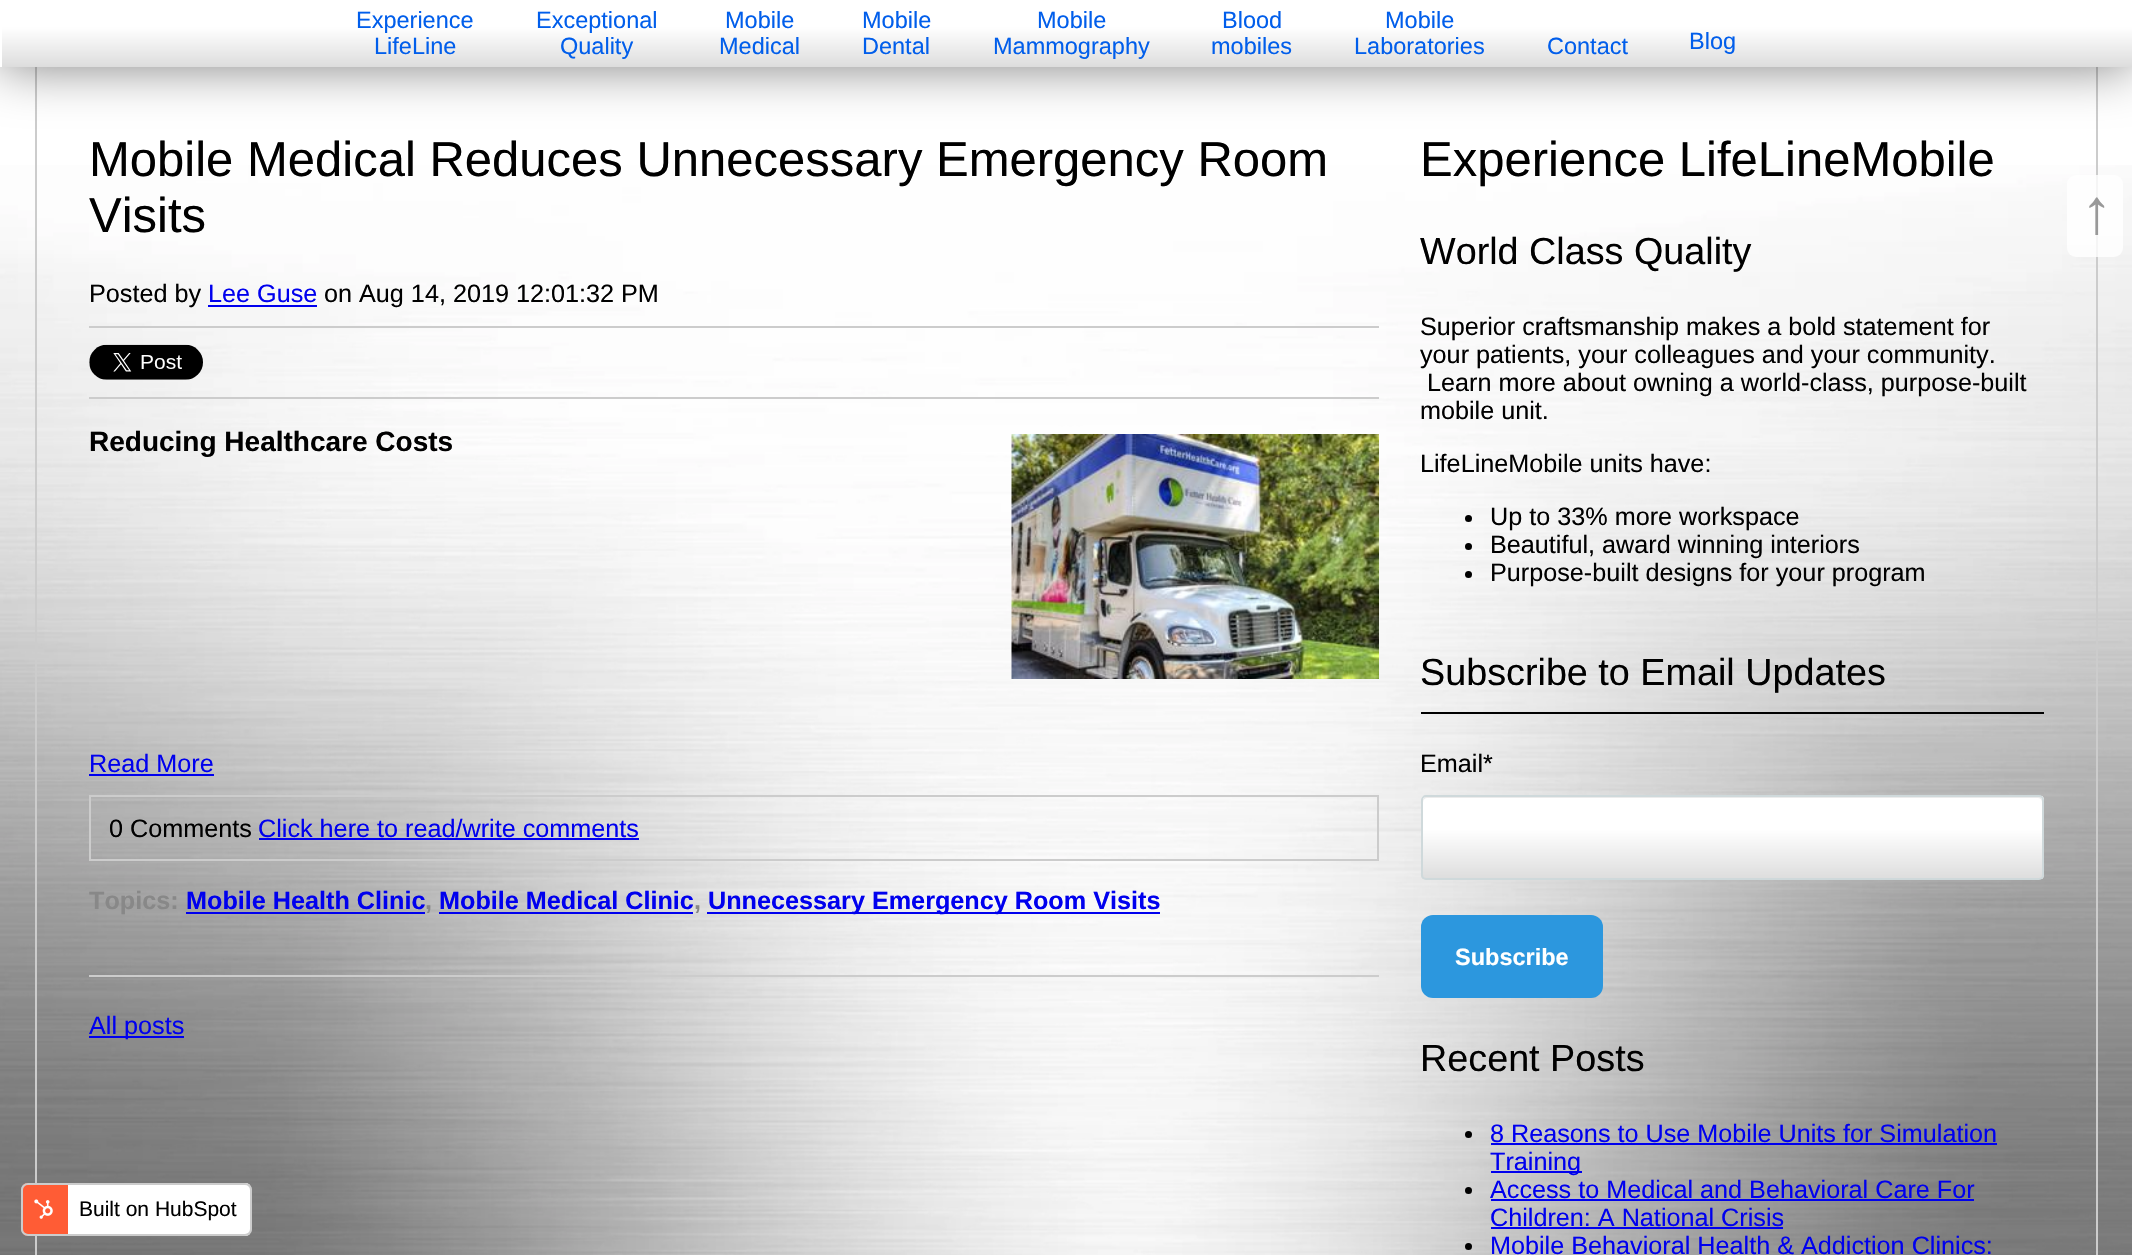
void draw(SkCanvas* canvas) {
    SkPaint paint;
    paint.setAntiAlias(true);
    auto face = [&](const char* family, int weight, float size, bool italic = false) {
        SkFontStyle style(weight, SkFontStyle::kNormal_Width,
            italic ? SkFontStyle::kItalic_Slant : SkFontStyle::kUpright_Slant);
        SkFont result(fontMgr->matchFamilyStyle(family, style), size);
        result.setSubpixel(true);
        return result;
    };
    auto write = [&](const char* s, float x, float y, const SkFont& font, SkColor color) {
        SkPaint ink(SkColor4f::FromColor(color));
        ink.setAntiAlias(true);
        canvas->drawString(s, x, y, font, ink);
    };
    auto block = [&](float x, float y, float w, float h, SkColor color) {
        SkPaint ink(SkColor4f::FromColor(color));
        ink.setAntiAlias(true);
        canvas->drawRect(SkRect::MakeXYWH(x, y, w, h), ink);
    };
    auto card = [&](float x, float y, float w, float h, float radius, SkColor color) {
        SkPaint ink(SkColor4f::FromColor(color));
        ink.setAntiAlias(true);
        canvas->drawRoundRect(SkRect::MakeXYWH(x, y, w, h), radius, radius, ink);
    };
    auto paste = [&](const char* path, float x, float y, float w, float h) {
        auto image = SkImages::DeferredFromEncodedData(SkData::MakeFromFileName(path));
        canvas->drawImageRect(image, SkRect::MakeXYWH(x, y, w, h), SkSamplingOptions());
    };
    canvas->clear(SK_ColorWHITE);
    paste("pic1.png", 0, 165, 2132, 1090);
    paint.setStyle(SkPaint::kStroke_Style);
    paint.setStrokeWidth(2);
    paint.setColor(SkColorSetRGB(204, 204, 204));
    canvas->drawRect(SkRect::MakeXYWH(36, -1, 2061, 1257), paint);
    paint.setStyle(SkPaint::kFill_Style);
    paint.setColor(SkColorSetARGB(128, 0, 0, 0));
    paint.setMaskFilter(SkMaskFilter::MakeBlur(kNormal_SkBlurStyle, 26));
    canvas->drawRect(SkRect::MakeXYWH(0, 0, 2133, 67), paint);
    paint.setMaskFilter(nullptr);
    block(0, 0, 2, 67, SK_ColorWHITE);
    {
        const SkColor colors[] = {SK_ColorWHITE, SkColorSetRGB(221, 221, 221)};
        const float stops[] = {0.4f, 1};
        const SkPoint ends[] = {{1068, 0}, {1068, 67}};
        paint.setShader(SkGradientShader::MakeLinear(ends, colors, stops, 2, SkTileMode::kClamp));
        paint.setAlpha(255);
    }
    canvas->drawRect(SkRect::MakeXYWH(2, 0, 2130, 67), paint);
    auto kFont1 = face("Liberation Sans", 400, 23.5f);
    write("Experience", 356, 28, kFont1, SkColorSetRGB(1, 94, 235));
    write("LifeLine", 374, 54, kFont1, SkColorSetRGB(1, 94, 235));
    write("Exceptional", 536, 28, kFont1, SkColorSetRGB(1, 94, 235));
    write("Quality", 560, 54, kFont1, SkColorSetRGB(1, 94, 235));
    write("Mobile", 725, 28, kFont1, SkColorSetRGB(1, 94, 235));
    write("Medical", 719, 54, kFont1, SkColorSetRGB(1, 94, 235));
    write("Mobile", 862, 28, kFont1, SkColorSetRGB(1, 94, 235));
    write("Dental", 862, 54, kFont1, SkColorSetRGB(1, 94, 235));
    write("Mobile", 1037, 28, kFont1, SkColorSetRGB(1, 94, 235));
    write("Mammography", 993, 54, kFont1, SkColorSetRGB(1, 94, 235));
    write("Blood", 1222, 28, kFont1, SkColorSetRGB(1, 94, 235));
    write("mobiles", 1211, 54, kFont1, SkColorSetRGB(1, 94, 235));
    write("Mobile", 1385, 28, kFont1, SkColorSetRGB(1, 94, 235));
    write("Laboratories", 1354, 54, kFont1, SkColorSetRGB(1, 94, 235));
    write("Contact", 1547, 54, kFont1, SkColorSetRGB(1, 94, 235));
    write("Blog", 1689, 49, kFont1, SkColorSetRGB(1, 94, 235));
    block(89, 975, 1290, 2, SkColorSetRGB(204, 204, 204));
    auto kFont2 = face("Liberation Sans", 400, 49);
    write("Mobile Medical Reduces Unnecessary Emergency Room", 89, 176, kFont2, SK_ColorBLACK);
    write("Visits", 89, 232, kFont2, SK_ColorBLACK);
    auto kFont3 = face("Liberation Sans", 400, 25.2f);
    write("Posted by", 89, 302, kFont3, SK_ColorBLACK);
    write("Lee Guse", 208, 302, kFont3, SkColorSetRGB(0, 0, 238));
    block(208, 305, 109, 2, SkColorSetRGB(0, 0, 238));
    write("on Aug 14, 2019 12:01:32 PM", 324, 302, kFont3, SK_ColorBLACK);
    block(89, 326, 1290, 2, SkColorSetRGB(204, 204, 204));
    block(89, 397, 1290, 2, SkColorSetRGB(204, 204, 204));
    paste("pic2.png", 89, 344, 114, 36);
    auto kFont4 = face("Liberation Sans", 700, 28);
    write("Reducing Healthcare Costs", 89, 451, kFont4, SK_ColorBLACK);
    paste("pic3.png", 1011, 434, 368, 245);
    write("Read More", 89, 772, kFont3, SkColorSetRGB(0, 0, 238));
    block(89, 774, 125, 2, SkColorSetRGB(0, 0, 238));
    paint.setStyle(SkPaint::kStroke_Style);
    paint.setShader(nullptr);
    paint.setColor(SkColorSetRGB(204, 204, 204));
    canvas->drawRect(SkRect::MakeXYWH(90, 796, 1288, 64), paint);
    write("0 Comments", 109, 837, kFont3, SK_ColorBLACK);
    write("Click here to read/write comments", 258, 837, kFont3, SkColorSetRGB(0, 0, 238));
    block(259, 838, 380, 2, SkColorSetRGB(0, 0, 238));
    auto kFont5 = face("Liberation Sans", 700, 25.2f);
    write("Topics:", 89, 909, kFont5, SkColorSetRGB(136, 136, 136));
    write("Mobile Health Clinic", 186, 909, kFont5, SkColorSetRGB(0, 0, 238));
    block(186, 912, 239, 2, SkColorSetRGB(0, 0, 238));
    write(",", 425, 909, kFont5, SkColorSetRGB(136, 136, 136));
    write("Mobile Medical Clinic", 439, 909, kFont5, SkColorSetRGB(0, 0, 238));
    block(439, 912, 254, 2, SkColorSetRGB(0, 0, 238));
    write(",", 694, 909, kFont5, SkColorSetRGB(136, 136, 136));
    block(707, 912, 453, 2, SkColorSetRGB(0, 0, 238));
    write("Unnecessary Emergency Room Visits", 708, 909, kFont5, SkColorSetRGB(0, 0, 238));
    block(89, 1036, 95, 2, SkColorSetRGB(0, 0, 238));
    write("All posts", 89, 1034, kFont3, SkColorSetRGB(0, 0, 238));
    write("Experience LifeLineMobile", 1420, 176, kFont2, SK_ColorBLACK);
    auto kFont6 = face("Liberation Sans", 400, 37.75f);
    write("World Class Quality", 1420, 264, kFont6, SK_ColorBLACK);
    write("Superior craftsmanship makes a bold statement for", 1420, 335, kFont3, SK_ColorBLACK);
    write("your patients, your colleagues and your community.", 1420, 363, kFont3, SK_ColorBLACK);
    write("Learn more about owning a world-class, purpose-built", 1427, 391, kFont3, SK_ColorBLACK);
    write("mobile unit.", 1420, 419, kFont3, SK_ColorBLACK);
    write("LifeLineMobile units have:", 1420, 472, kFont3, SK_ColorBLACK);
    paint.setStyle(SkPaint::kFill_Style);
    paint.setColor(SK_ColorBLACK);
    canvas->drawCircle(1468.5f, 518.5f, 3.5f, paint);
    write("Up to 33% more workspace", 1490, 525, kFont3, SK_ColorBLACK);
    canvas->drawCircle(1468.5f, 546.5f, 3.5f, paint);
    write("Beautiful, award winning interiors", 1490, 553, kFont3, SK_ColorBLACK);
    canvas->drawCircle(1468.5f, 574.5f, 3.5f, paint);
    write("Purpose-built designs for your program", 1490, 581, kFont3, SK_ColorBLACK);
    block(1421, 712, 623, 2, SK_ColorBLACK);
    write("Subscribe to Email Updates", 1420, 685, kFont6, SK_ColorBLACK);
    write("Email*", 1420, 772, kFont3, SK_ColorBLACK);
    canvas->save();
    canvas->clipPath(SkPathBuilder().moveTo(1426, 795).lineTo(2039, 795).cubicTo(2042, 795, 2044, 797, 2044, 800).lineTo(2044, 875).cubicTo(2044, 878, 2042, 880, 2039, 880).lineTo(1426, 880).cubicTo(1423, 880, 1421, 878, 1421, 875).lineTo(1421, 800).cubicTo(1421, 797, 1423, 795, 1426, 795).close().detach(), true);
    {
        const SkColor colors[] = {SK_ColorWHITE, SkColorSetRGB(221, 221, 221)};
        const float stops[] = {0.4f, 1};
        const SkPoint ends[] = {{1733, 796}, {1733, 879}};
        paint.setShader(SkGradientShader::MakeLinear(ends, colors, stops, 2, SkTileMode::kClamp));
        paint.setAlpha(255);
    }
    canvas->drawRect(SkRect::MakeXYWH(1421, 796, 623, 83), paint);
    canvas->restore();
    paint.setShader(nullptr);
    paint.setColor(SkColorSetRGB(235, 235, 235));
    canvas->drawPath(SkPathBuilder().moveTo(1427, 798).lineTo(2038, 798).cubicTo(2040, 798, 2042, 800, 2042, 802).cubicTo(2042, 799, 2042, 796, 2038, 796).lineTo(1425, 796).lineTo(1424, 798).cubicTo(1423, 799, 1423, 801, 1423, 802).cubicTo(1423, 800, 1425, 798, 1427, 798).close().detach(), paint);
    paint.setStyle(SkPaint::kStroke_Style);
    paint.setColor(SkColorSetRGB(207, 217, 219));
    canvas->drawRoundRect(SkRect::MakeXYWH(1422, 796, 621, 83), 4, 4, paint);
    card(1421, 915, 182, 83, 12, SkColorSetRGB(44, 151, 222));
    auto kFont7 = face("Liberation Sans", 700, 23.5f);
    write("Subscribe", 1455, 965, kFont7, SK_ColorWHITE);
    write("Recent Posts", 1420, 1071, kFont6, SK_ColorBLACK);
    paint.setStyle(SkPaint::kFill_Style);
    paint.setColor(SK_ColorBLACK);
    canvas->drawCircle(1468.5f, 1134.5f, 3.5f, paint);
    write("8 Reasons to Use Mobile Units for Simulation", 1490, 1142, kFont3, SkColorSetRGB(0, 0, 238));
    block(1491, 1143, 506, 2, SkColorSetRGB(0, 0, 238));
    block(1491, 1171, 91, 2, SkColorSetRGB(0, 0, 238));
    write("Training", 1490, 1170, kFont3, SkColorSetRGB(0, 0, 238));
    canvas->drawCircle(1468.5f, 1190.5f, 3.5f, paint);
    write("Access to Medical and Behavioral Care For", 1490, 1198, kFont3, SkColorSetRGB(0, 0, 238));
    block(1491, 1199, 483, 2, SkColorSetRGB(0, 0, 238));
    write("Children: A National Crisis", 1490, 1226, kFont3, SkColorSetRGB(0, 0, 238));
    block(1491, 1227, 292, 2, SkColorSetRGB(0, 0, 238));
    canvas->drawCircle(1468.5f, 1246.5f, 3.5f, paint);
    write("Mobile Behavioral Health & Addiction Clinics:", 1490, 1254, kFont3, SkColorSetRGB(0, 0, 238));
    card(2067, 175, 56, 82, 9, SkColorSetARGB(204, 255, 255, 255));
    auto kFont8 = face("Liberation Sans", 400, 63);
    write("↑", 2081, 233, kFont8, SkColorSetRGB(153, 153, 153));
    canvas->save();
    canvas->clipPath(SkPathBuilder().moveTo(28, 1183).lineTo(245, 1183).cubicTo(249, 1183, 252, 1186, 252, 1190).lineTo(252, 1229).cubicTo(252, 1233, 249, 1236, 245, 1236).lineTo(28, 1236).cubicTo(24, 1236, 21, 1233, 21, 1229).lineTo(21, 1190).cubicTo(21, 1186, 24, 1183, 28, 1183).close().detach(), true);
    block(23, 1183, 45, 53, SkColorSetRGB(255, 92, 53));
    block(68, 1183, 182, 53, SK_ColorWHITE);
    canvas->restore();
    paint.setStyle(SkPaint::kStroke_Style);
    paint.setColor(SkColorSetRGB(204, 204, 204));
    canvas->drawRoundRect(SkRect::MakeXYWH(22, 1184, 229, 51), 6, 6, paint);
    paste("pic4.png", 34, 1199, 19, 20);
    auto kFont9 = face("Liberation Sans", 400, 21);
    write("Built on HubSpot", 79, 1216, kFont9, SK_ColorBLACK);
}
